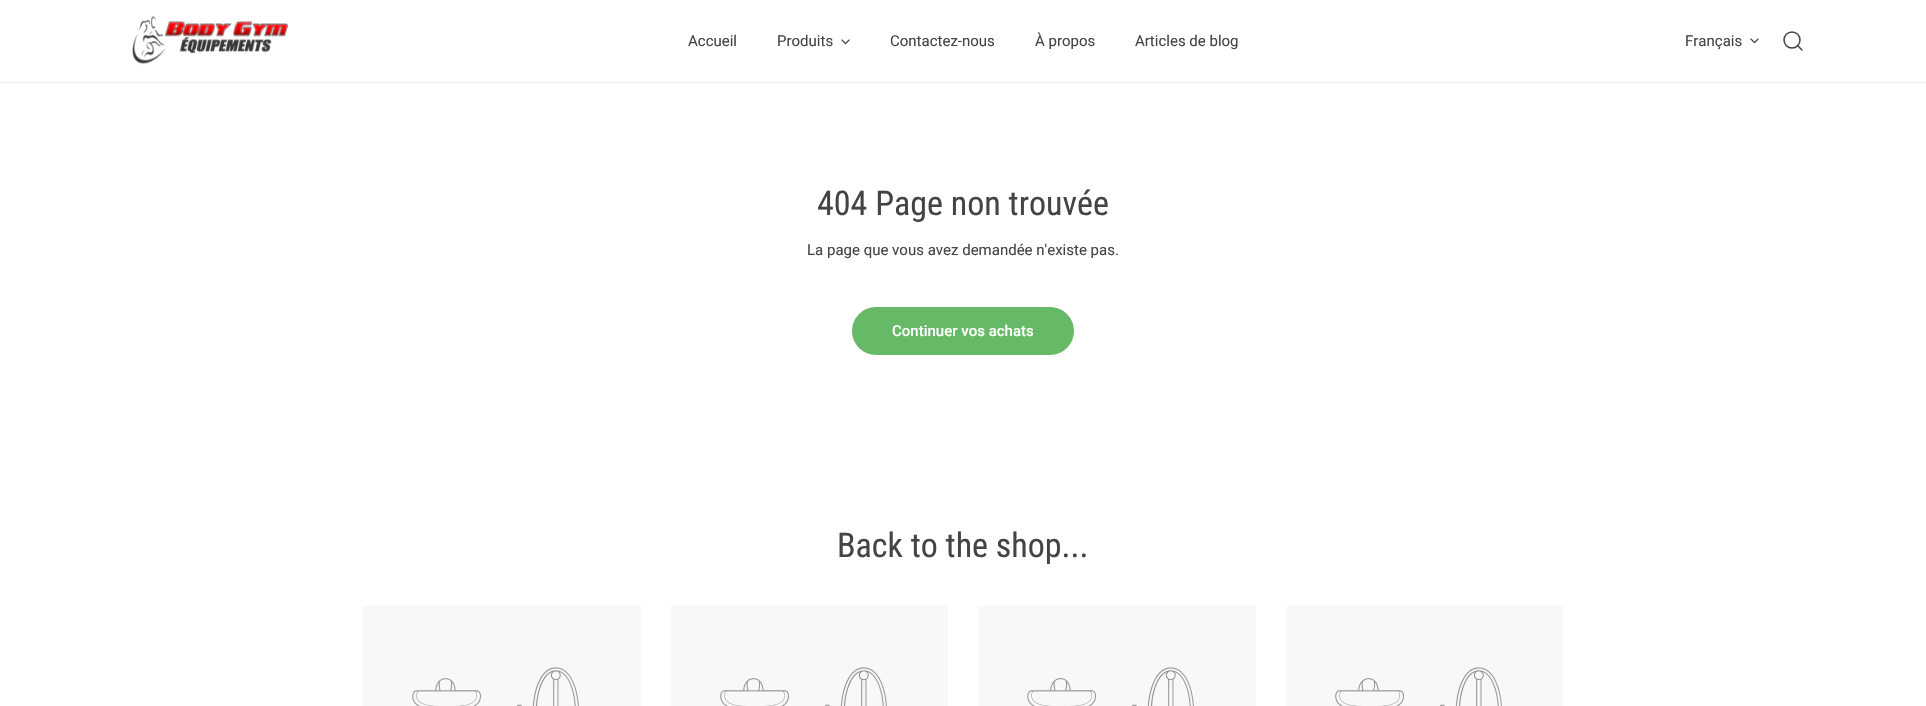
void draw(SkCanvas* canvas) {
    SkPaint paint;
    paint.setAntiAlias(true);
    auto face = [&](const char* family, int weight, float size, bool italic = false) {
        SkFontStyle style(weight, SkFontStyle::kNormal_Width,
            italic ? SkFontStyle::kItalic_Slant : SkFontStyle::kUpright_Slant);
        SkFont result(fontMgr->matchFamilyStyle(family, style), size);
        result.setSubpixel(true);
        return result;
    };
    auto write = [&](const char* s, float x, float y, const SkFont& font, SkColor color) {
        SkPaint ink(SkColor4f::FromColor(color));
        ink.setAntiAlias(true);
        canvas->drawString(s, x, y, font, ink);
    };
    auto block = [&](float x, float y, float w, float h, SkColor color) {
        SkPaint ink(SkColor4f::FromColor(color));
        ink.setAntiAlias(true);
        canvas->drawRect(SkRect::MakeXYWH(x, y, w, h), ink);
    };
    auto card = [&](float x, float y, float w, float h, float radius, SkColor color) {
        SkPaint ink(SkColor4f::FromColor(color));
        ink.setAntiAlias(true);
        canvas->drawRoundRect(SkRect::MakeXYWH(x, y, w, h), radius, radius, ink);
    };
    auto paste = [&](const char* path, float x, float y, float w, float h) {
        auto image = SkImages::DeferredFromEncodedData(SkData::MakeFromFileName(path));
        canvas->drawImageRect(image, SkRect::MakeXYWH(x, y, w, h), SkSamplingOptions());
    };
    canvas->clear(SK_ColorWHITE);
    block(0, 82, 1926, 1, SkColorSetRGB(237, 237, 237));
    paste("pic1.png", 132, 16, 156, 49);
    auto kFont1 = face("Roboto", 400, 15);
    write("Accueil", 688, 46, kFont1, SkColorSetRGB(68, 68, 68));
    write("Produits", 777, 46, kFont1, SkColorSetRGB(68, 68, 68));
    paste("pic2.png", 841, 39, 9, 6);
    write("Contactez-nous", 890, 46, kFont1, SkColorSetRGB(68, 68, 68));
    write("À propos", 1035, 46, kFont1, SkColorSetRGB(68, 68, 68));
    write("Articles de blog", 1135, 46, kFont1, SkColorSetRGB(68, 68, 68));
    write("Français", 1685, 46, kFont1, SkColorSetRGB(68, 68, 68));
    paste("pic2.png", 1750, 38, 9, 6);
    paint.setStyle(SkPaint::kStroke_Style);
    paint.setStrokeWidth(1.5f);
    paint.setColor(SkColorSetRGB(68, 68, 68));
    canvas->drawCircle(1792, 40, 8, paint);
    paint.setStrokeCap(SkPaint::kRound_Cap);
    paint.setStrokeJoin(SkPaint::kRound_Join);
    canvas->drawPath(SkPathBuilder().moveTo(1802, 50).lineTo(1797.5f, 45.5f).detach(), paint);
    auto kFont2 = face("Roboto Condensed", 400, 34);
    write("404 Page non trouvée", 817, 215, kFont2, SkColorSetRGB(68, 68, 68));
    write("La page que vous avez demandée n'existe pas.", 807, 255, kFont1, SkColorSetRGB(68, 68, 68));
    card(852, 307, 222, 48, 24, SkColorSetRGB(102, 185, 102));
    auto kFont3 = face("Roboto", 500, 15);
    write("Continuer vos achats", 892, 336, kFont3, SK_ColorWHITE);
    write("Back to the shop...", 837, 557, kFont2, SkColorSetRGB(68, 68, 68));
    block(363, 606, 278, 100, SkColorSetRGB(248, 248, 248));
    paste("pic3.png", 412, 667, 167, 39);
    block(671, 606, 277, 100, SkColorSetRGB(248, 248, 248));
    paste("pic3.png", 720, 667, 167, 39);
    block(978, 606, 278, 100, SkColorSetRGB(248, 248, 248));
    paste("pic3.png", 1027, 667, 167, 39);
    block(1286, 606, 277, 100, SkColorSetRGB(248, 248, 248));
    paste("pic3.png", 1335, 667, 167, 39);
    paint.setStyle(SkPaint::kFill_Style);
    paint.setColor(SK_ColorWHITE);
    canvas->drawPath(SkPathBuilder().moveTo(931, 354).cubicTo(930, 386, 972, 399, 990, 373).cubicTo(993, 367, 995, 361, 995, 354).cubicTo(994, 371, 980, 385, 963, 385).cubicTo(946, 385, 932, 371, 931, 354).close().detach(), paint);
}
